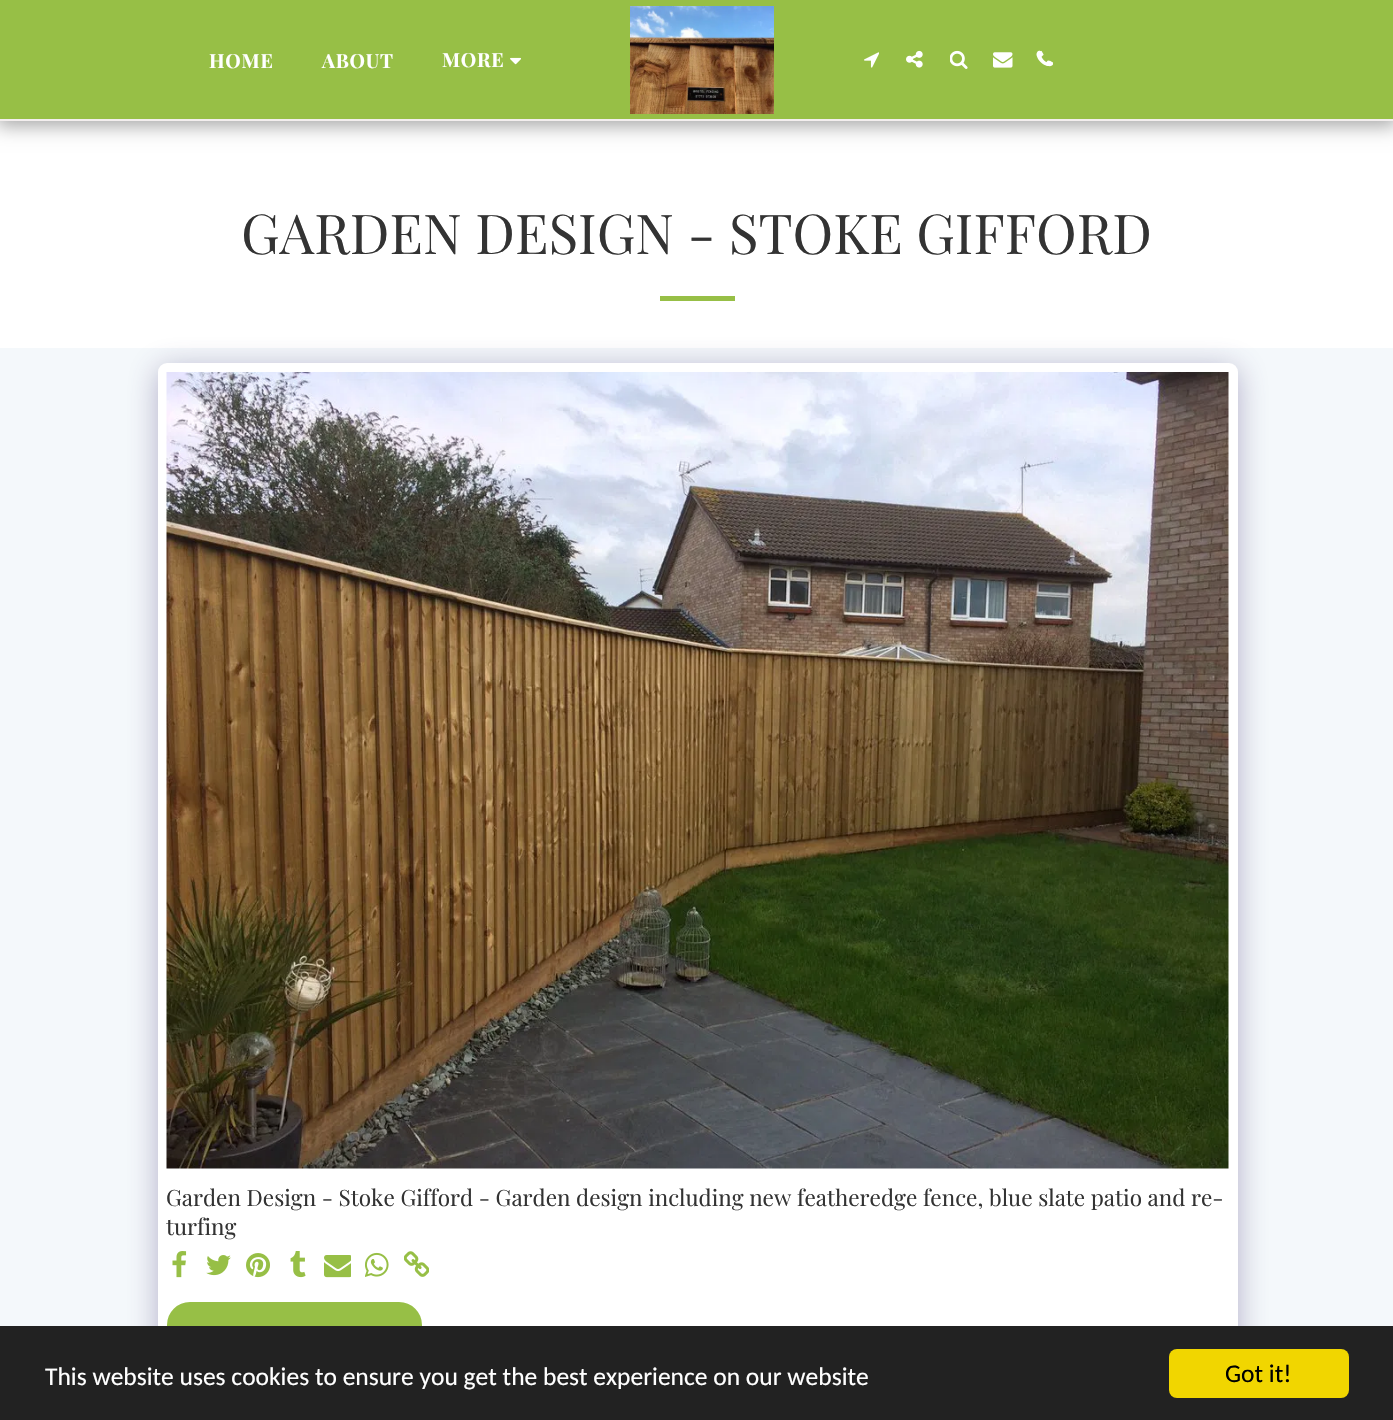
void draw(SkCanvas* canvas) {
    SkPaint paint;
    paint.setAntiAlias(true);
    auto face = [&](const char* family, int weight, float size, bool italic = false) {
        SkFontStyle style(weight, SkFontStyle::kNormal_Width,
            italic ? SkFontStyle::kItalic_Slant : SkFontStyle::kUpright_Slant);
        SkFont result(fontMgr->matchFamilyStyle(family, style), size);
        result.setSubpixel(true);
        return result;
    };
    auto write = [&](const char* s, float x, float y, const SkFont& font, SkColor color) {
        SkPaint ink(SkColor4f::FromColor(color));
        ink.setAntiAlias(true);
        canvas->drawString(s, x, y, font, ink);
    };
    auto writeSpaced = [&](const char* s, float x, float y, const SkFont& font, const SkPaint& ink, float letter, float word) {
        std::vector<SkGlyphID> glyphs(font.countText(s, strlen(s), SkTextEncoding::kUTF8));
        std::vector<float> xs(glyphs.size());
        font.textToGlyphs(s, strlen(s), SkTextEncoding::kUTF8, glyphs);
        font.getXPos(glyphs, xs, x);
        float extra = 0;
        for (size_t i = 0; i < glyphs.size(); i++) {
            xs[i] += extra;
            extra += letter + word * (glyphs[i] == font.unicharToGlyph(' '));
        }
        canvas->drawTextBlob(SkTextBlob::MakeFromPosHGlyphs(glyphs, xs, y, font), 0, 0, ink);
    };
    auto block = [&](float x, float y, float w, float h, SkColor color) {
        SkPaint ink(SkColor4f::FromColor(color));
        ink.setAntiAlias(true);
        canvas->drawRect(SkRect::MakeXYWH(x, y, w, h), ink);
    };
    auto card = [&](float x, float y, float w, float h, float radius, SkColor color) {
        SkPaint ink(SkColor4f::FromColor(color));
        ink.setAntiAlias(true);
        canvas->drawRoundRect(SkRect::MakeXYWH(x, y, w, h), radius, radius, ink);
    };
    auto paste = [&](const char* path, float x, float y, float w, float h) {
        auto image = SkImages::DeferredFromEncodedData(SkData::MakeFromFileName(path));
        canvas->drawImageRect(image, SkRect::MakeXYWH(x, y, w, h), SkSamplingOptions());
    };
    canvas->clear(SkColorSetRGB(244, 248, 251));
    block(0, 121, 1393, 227, SK_ColorWHITE);
    paint.setColor(SkColorSetARGB(89, 0, 0, 0));
    paint.setMaskFilter(SkMaskFilter::MakeBlur(kNormal_SkBlurStyle, 9));
    canvas->drawRect(SkRect::MakeXYWH(-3, 0, 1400, 126), paint);
    paint.setMaskFilter(nullptr);
    block(0, 0, 1393, 119, SkColorSetRGB(151, 191, 70));
    block(0, 119, 1393, 2, SkColorSetRGB(243, 238, 238));
    auto kFont1 = face("Playfair Display", 700, 19.5f);
    paint.setColor(SK_ColorWHITE);
    writeSpaced("HOME", 209, 68, kFont1, paint, 0.75f, 0);
    writeSpaced("ABOUT", 322, 68, kFont1, paint, 0.75f, 0);
    writeSpaced("MORE", 442, 67, kFont1, paint, 0.75f, 0);
    paste("pic1.png", 510, 57, 11, 8);
    paste("pic2.png", 630, 6, 144, 108);
    paste("pic3.png", 864, 52, 15, 16);
    paste("pic4.png", 906, 50, 17, 18);
    paste("pic5.png", 950, 50, 18, 19);
    paste("pic6.png", 993, 52, 20, 16);
    paste("pic7.png", 1040, 50, 13, 17);
    paste("pic8.png", 1036, 50, 15, 16);
    auto kFont2 = face("Playfair Display", 400, 54.9f);
    write("GARDEN DESIGN - STOKE GIFFORD", 241, 254, kFont2, SkColorSetRGB(51, 51, 51));
    block(660, 296, 75, 5, SkColorSetRGB(151, 191, 70));
    paint.setColor(SkColorSetARGB(102, 77, 63, 122));
    paint.setMaskFilter(SkMaskFilter::MakeBlur(kNormal_SkBlurStyle, 15));
    canvas->drawRoundRect(SkRect::MakeXYWH(158, 368, 1080, 1018), 9, 9, paint);
    paint.setMaskFilter(nullptr);
    card(158, 363, 1080, 1019, 9, SK_ColorWHITE);
    paste("pic9.png", 166, 372, 1063, 797);
    auto kFont3 = face("Playfair Display", 400, 22.5f);
    write("Garden Design - Stoke Gifford - Garden design including new featheredge fence, blue slate patio and re-", 166, 1206, kFont3, SkColorSetRGB(51, 51, 51));
    write("turfing", 166, 1235, kFont3, SkColorSetRGB(51, 51, 51));
    paste("pic10.png", 172, 1251, 15, 27);
    paste("pic11.png", 206, 1255, 25, 21);
    paste("pic12.png", 246, 1253, 24, 25);
    paste("pic13.png", 290, 1251, 16, 27);
    paste("pic14.png", 324, 1255, 27, 23);
    paste("pic15.png", 365, 1252, 24, 25);
    paste("pic16.png", 404, 1251, 25, 26);
    paint.setColor(SkColorSetRGB(151, 191, 70));
    canvas->drawRoundRect(SkRect::MakeXYWH(168, 1303, 253, 69), 22, 22, paint);
    paint.setStyle(SkPaint::kStroke_Style);
    paint.setStrokeWidth(2);
    canvas->drawRoundRect(SkRect::MakeXYWH(168, 1303, 253, 69), 22, 22, paint);
    block(0, 1326, 1393, 94, SkColorSetRGB(34, 34, 34));
    auto kFont4 = face("Carlito", 400, 25.5f);
    write("This website uses cookies to ensure you get the best experience on our website", 45, 1385, kFont4, SK_ColorWHITE);
    card(1169, 1349, 180, 49, 8, SkColorSetRGB(241, 214, 0));
    write("Got it!", 1225, 1382, kFont4, SK_ColorBLACK);
}
